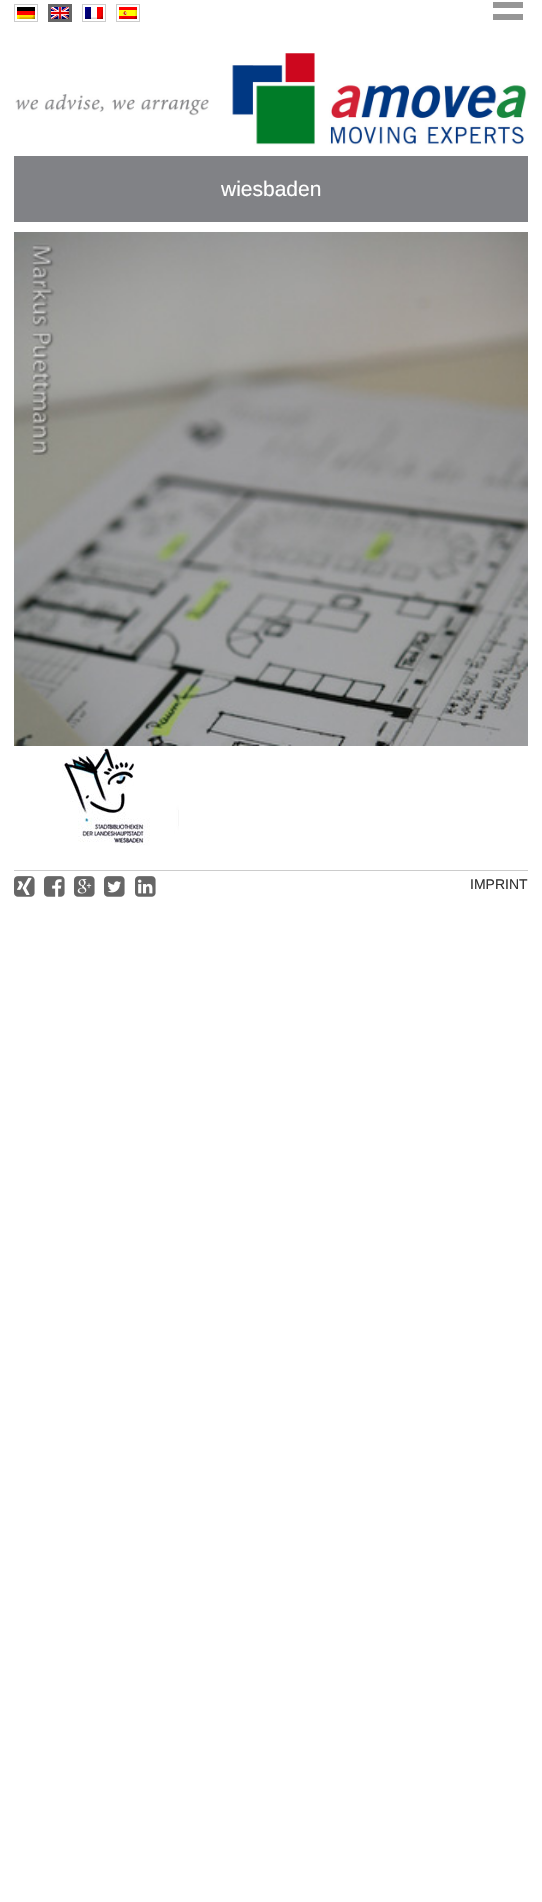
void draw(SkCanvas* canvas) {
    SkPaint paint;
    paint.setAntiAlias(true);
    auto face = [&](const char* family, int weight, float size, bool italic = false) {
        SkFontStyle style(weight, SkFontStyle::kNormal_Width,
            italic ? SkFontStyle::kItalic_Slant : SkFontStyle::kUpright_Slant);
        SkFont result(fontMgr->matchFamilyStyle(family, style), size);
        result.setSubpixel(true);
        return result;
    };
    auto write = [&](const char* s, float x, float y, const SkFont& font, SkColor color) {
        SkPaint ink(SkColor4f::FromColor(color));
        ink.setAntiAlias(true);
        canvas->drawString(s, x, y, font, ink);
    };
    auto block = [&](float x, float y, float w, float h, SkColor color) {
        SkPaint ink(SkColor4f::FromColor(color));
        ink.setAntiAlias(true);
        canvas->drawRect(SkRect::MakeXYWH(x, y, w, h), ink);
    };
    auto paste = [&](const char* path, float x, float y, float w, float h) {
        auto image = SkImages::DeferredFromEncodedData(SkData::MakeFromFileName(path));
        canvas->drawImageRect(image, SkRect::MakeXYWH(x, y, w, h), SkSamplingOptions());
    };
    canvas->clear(SK_ColorWHITE);
    paint.setStyle(SkPaint::kStroke_Style);
    paint.setStrokeWidth(1);
    paint.setColor(SkColorSetRGB(204, 204, 204));
    canvas->drawRect(SkRect::MakeXYWH(14.5f, 4.5f, 23, 17), paint);
    paste("pic1.png", 17, 7, 18, 12);
    block(48, 4, 24, 18, SkColorSetRGB(102, 102, 102));
    paste("pic2.png", 51, 7, 18, 12);
    canvas->drawRect(SkRect::MakeXYWH(82.5f, 4.5f, 23, 17), paint);
    paste("pic3.png", 85, 7, 18, 12);
    canvas->drawRect(SkRect::MakeXYWH(116.5f, 4.5f, 23, 17), paint);
    paste("pic4.png", 119, 7, 18, 12);
    block(493, 2, 30, 6, SkColorSetRGB(150, 150, 150));
    block(493, 14, 30, 6, SkColorSetRGB(150, 150, 150));
    paste("pic5.png", 15, 53, 512, 92);
    block(14, 156, 514, 66, SkColorSetRGB(129, 130, 134));
    auto kFont1 = face("Liberation Sans", 400, 21);
    write("wiesbaden", 221, 196, kFont1, SK_ColorWHITE);
    paste("pic6.png", 14, 232, 514, 514);
    paste("pic7.png", 62, 747, 117, 99);
    block(14, 870, 514, 1, SkColorSetRGB(204, 204, 204));
    paste("pic8.png", 14, 876, 21, 21);
    paste("pic9.png", 44, 876, 21, 21);
    paste("pic10.png", 74, 876, 21, 21);
    paste("pic11.png", 104, 876, 21, 21);
    paste("pic12.png", 135, 876, 21, 21);
    auto kFont2 = face("Liberation Sans", 400, 14);
    write("IMPRINT", 470, 889, kFont2, SkColorSetRGB(51, 51, 51));
}
